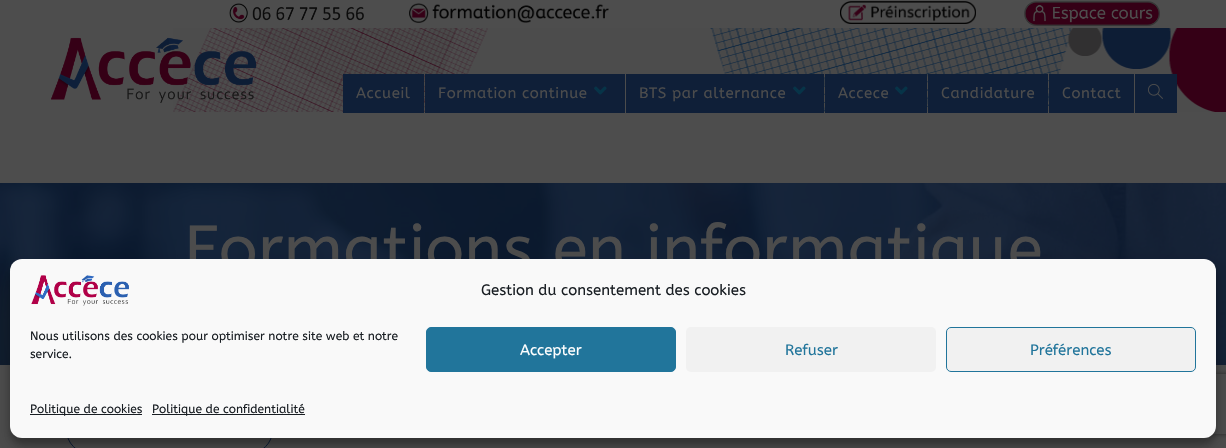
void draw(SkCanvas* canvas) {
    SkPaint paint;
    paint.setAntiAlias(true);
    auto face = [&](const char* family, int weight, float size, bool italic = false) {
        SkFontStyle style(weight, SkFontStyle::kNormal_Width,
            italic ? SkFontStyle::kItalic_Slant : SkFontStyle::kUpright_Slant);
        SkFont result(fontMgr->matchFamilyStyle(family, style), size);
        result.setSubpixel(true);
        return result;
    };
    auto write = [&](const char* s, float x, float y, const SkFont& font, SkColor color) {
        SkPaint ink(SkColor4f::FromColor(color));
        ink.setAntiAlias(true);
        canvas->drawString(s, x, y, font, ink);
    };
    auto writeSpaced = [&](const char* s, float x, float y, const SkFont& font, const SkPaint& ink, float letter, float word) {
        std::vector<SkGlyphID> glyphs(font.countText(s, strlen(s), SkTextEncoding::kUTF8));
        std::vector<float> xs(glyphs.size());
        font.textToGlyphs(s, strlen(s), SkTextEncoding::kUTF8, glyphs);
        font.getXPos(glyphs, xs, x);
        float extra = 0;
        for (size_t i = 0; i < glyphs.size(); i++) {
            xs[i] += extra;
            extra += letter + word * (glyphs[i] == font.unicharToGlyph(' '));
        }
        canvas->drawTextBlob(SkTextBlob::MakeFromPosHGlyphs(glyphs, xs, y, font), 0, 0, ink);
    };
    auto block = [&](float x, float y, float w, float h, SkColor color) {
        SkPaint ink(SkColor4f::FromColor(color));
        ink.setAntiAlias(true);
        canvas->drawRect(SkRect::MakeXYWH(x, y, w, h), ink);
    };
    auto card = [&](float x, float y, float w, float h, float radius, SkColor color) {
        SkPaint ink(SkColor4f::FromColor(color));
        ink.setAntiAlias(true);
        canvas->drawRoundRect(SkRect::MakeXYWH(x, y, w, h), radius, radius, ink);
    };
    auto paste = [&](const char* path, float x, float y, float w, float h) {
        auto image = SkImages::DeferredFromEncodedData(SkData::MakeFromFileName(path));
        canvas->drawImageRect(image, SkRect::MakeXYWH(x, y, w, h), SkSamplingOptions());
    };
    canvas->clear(SkColorSetRGB(77, 77, 77));
    paste("pic1.png", 229, 3, 135, 20);
    paste("pic2.png", 409, 3, 200, 20);
    paste("pic3.png", 840, 1, 136, 23);
    paste("pic4.png", 1024, 1, 136, 25);
    paste("pic5.png", 173, 28, 1053, 84);
    paste("pic6.png", 51, 37, 206, 66);
    block(343, 74, 81, 39, SkColorSetRGB(15, 31, 56));
    auto kFont1 = face("ABeeZee", 400, 15);
    paint.setColor(SkColorSetRGB(76, 76, 76));
    writeSpaced("Accueil", 356, 98, kFont1, paint, 0.6f, 0);
    block(425, 74, 200, 39, SkColorSetRGB(15, 31, 56));
    writeSpaced("Formation continue", 438, 98, kFont1, paint, 0.6f, 0);
    paste("pic7.png", 594, 86, 13, 9);
    block(626, 74, 198, 39, SkColorSetRGB(15, 31, 56));
    writeSpaced("BTS par alternance", 639, 98, kFont1, paint, 0.6f, 0);
    paste("pic7.png", 793, 86, 13, 9);
    block(825, 74, 102, 39, SkColorSetRGB(15, 31, 56));
    writeSpaced("Accece", 838, 98, kFont1, paint, 0.6f, 0);
    paste("pic7.png", 895, 86, 13, 9);
    block(928, 74, 120, 39, SkColorSetRGB(15, 31, 56));
    writeSpaced("Candidature", 941, 98, kFont1, paint, 0.6f, 0);
    block(1049, 74, 85, 39, SkColorSetRGB(15, 31, 56));
    writeSpaced("Contact", 1062, 98, kFont1, paint, 0.6f, 0);
    block(1135, 74, 42, 39, SkColorSetRGB(15, 31, 56));
    paste("pic8.png", 1148, 83, 15, 16);
    paste("pic9.png", 0, 183, 1226, 182);
    auto kFont2 = face("ABeeZee", 400, 65);
    write("Formations en informatique", 184, 271, kFont2, SkColorSetRGB(76, 76, 76));
    paint.setStyle(SkPaint::kStroke_Style);
    paint.setStrokeWidth(1);
    paint.setColor(SkColorSetRGB(11, 29, 56));
    canvas->drawRoundRect(SkRect::MakeXYWH(66.5f, 406.5f, 206, 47), 23.5f, 23.5f, paint);
    paint.setStyle(SkPaint::kFill_Style);
    paint.setColor(SkColorSetARGB(59, 0, 0, 0));
    paint.setMaskFilter(SkMaskFilter::MakeBlur(kNormal_SkBlurStyle, 3));
    canvas->drawRoundRect(SkRect::MakeXYWH(10, 265, 1206, 179), 12, 12, paint);
    paint.setMaskFilter(nullptr);
    paint.setColor(SkColorSetARGB(48, 0, 0, 0));
    paint.setMaskFilter(SkMaskFilter::MakeBlur(kNormal_SkBlurStyle, 10));
    canvas->drawRoundRect(SkRect::MakeXYWH(10, 269, 1206, 179), 12, 12, paint);
    paint.setMaskFilter(nullptr);
    canvas->save();
    canvas->clipPath(SkPathBuilder(SkPathFillType::kEvenOdd).moveTo(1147, 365).lineTo(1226, 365).lineTo(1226, 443).lineTo(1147, 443).close().moveTo(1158, 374).lineTo(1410, 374).cubicTo(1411, 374, 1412, 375, 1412, 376).lineTo(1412, 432).cubicTo(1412, 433, 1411, 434, 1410, 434).lineTo(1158, 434).cubicTo(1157, 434, 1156, 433, 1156, 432).lineTo(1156, 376).cubicTo(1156, 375, 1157, 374, 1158, 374).close().detach(), true);
    paint.setColor(SkColorSetRGB(38, 38, 38));
    paint.setMaskFilter(SkMaskFilter::MakeBlur(kNormal_SkBlurStyle, 2.5f));
    canvas->drawRoundRect(SkRect::MakeXYWH(1156, 374, 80, 60), 2, 2, paint);
    paint.setMaskFilter(nullptr);
    canvas->restore();
    card(10, 259, 1206, 179, 12, SkColorSetRGB(249, 249, 249));
    paste("pic10.png", 31, 275, 98, 31);
    write("Gestion du consentement des cookies", 481, 295, kFont1, SkColorSetRGB(25, 30, 35));
    auto kFont3 = face("ABeeZee", 400, 12);
    write("Nous utilisons des cookies pour optimiser notre site web et notre", 30, 340, kFont3, SkColorSetRGB(25, 30, 35));
    write("service.", 30, 358, kFont3, SkColorSetRGB(25, 30, 35));
    paint.setColor(SkColorSetRGB(33, 117, 155));
    canvas->drawRoundRect(SkRect::MakeXYWH(426.5f, 327.5f, 249, 44), 4.5f, 4.5f, paint);
    paint.setStyle(SkPaint::kStroke_Style);
    canvas->drawRoundRect(SkRect::MakeXYWH(426.5f, 327.5f, 249, 44), 4.5f, 4.5f, paint);
    write("Accepter", 520, 355, kFont1, SK_ColorWHITE);
    card(686, 327, 250, 45, 5, SkColorSetRGB(241, 241, 241));
    write("Refuser", 785, 355, kFont1, SkColorSetRGB(33, 117, 155));
    paint.setStyle(SkPaint::kFill_Style);
    paint.setColor(SkColorSetRGB(241, 241, 241));
    canvas->drawRoundRect(SkRect::MakeXYWH(946.5f, 327.5f, 249, 44), 4.5f, 4.5f, paint);
    paint.setStyle(SkPaint::kStroke_Style);
    paint.setColor(SkColorSetRGB(33, 117, 155));
    canvas->drawRoundRect(SkRect::MakeXYWH(946.5f, 327.5f, 249, 44), 4.5f, 4.5f, paint);
    write("Préférences", 1030, 355, kFont1, SkColorSetRGB(33, 117, 155));
    block(30, 414, 112, 1, SkColorSetRGB(25, 30, 35));
    write("Politique de cookies", 30, 413, kFont3, SkColorSetRGB(25, 30, 35));
    block(152, 414, 153, 1, SkColorSetRGB(25, 30, 35));
    write("Politique de confidentialité", 152, 413, kFont3, SkColorSetRGB(25, 30, 35));
}
